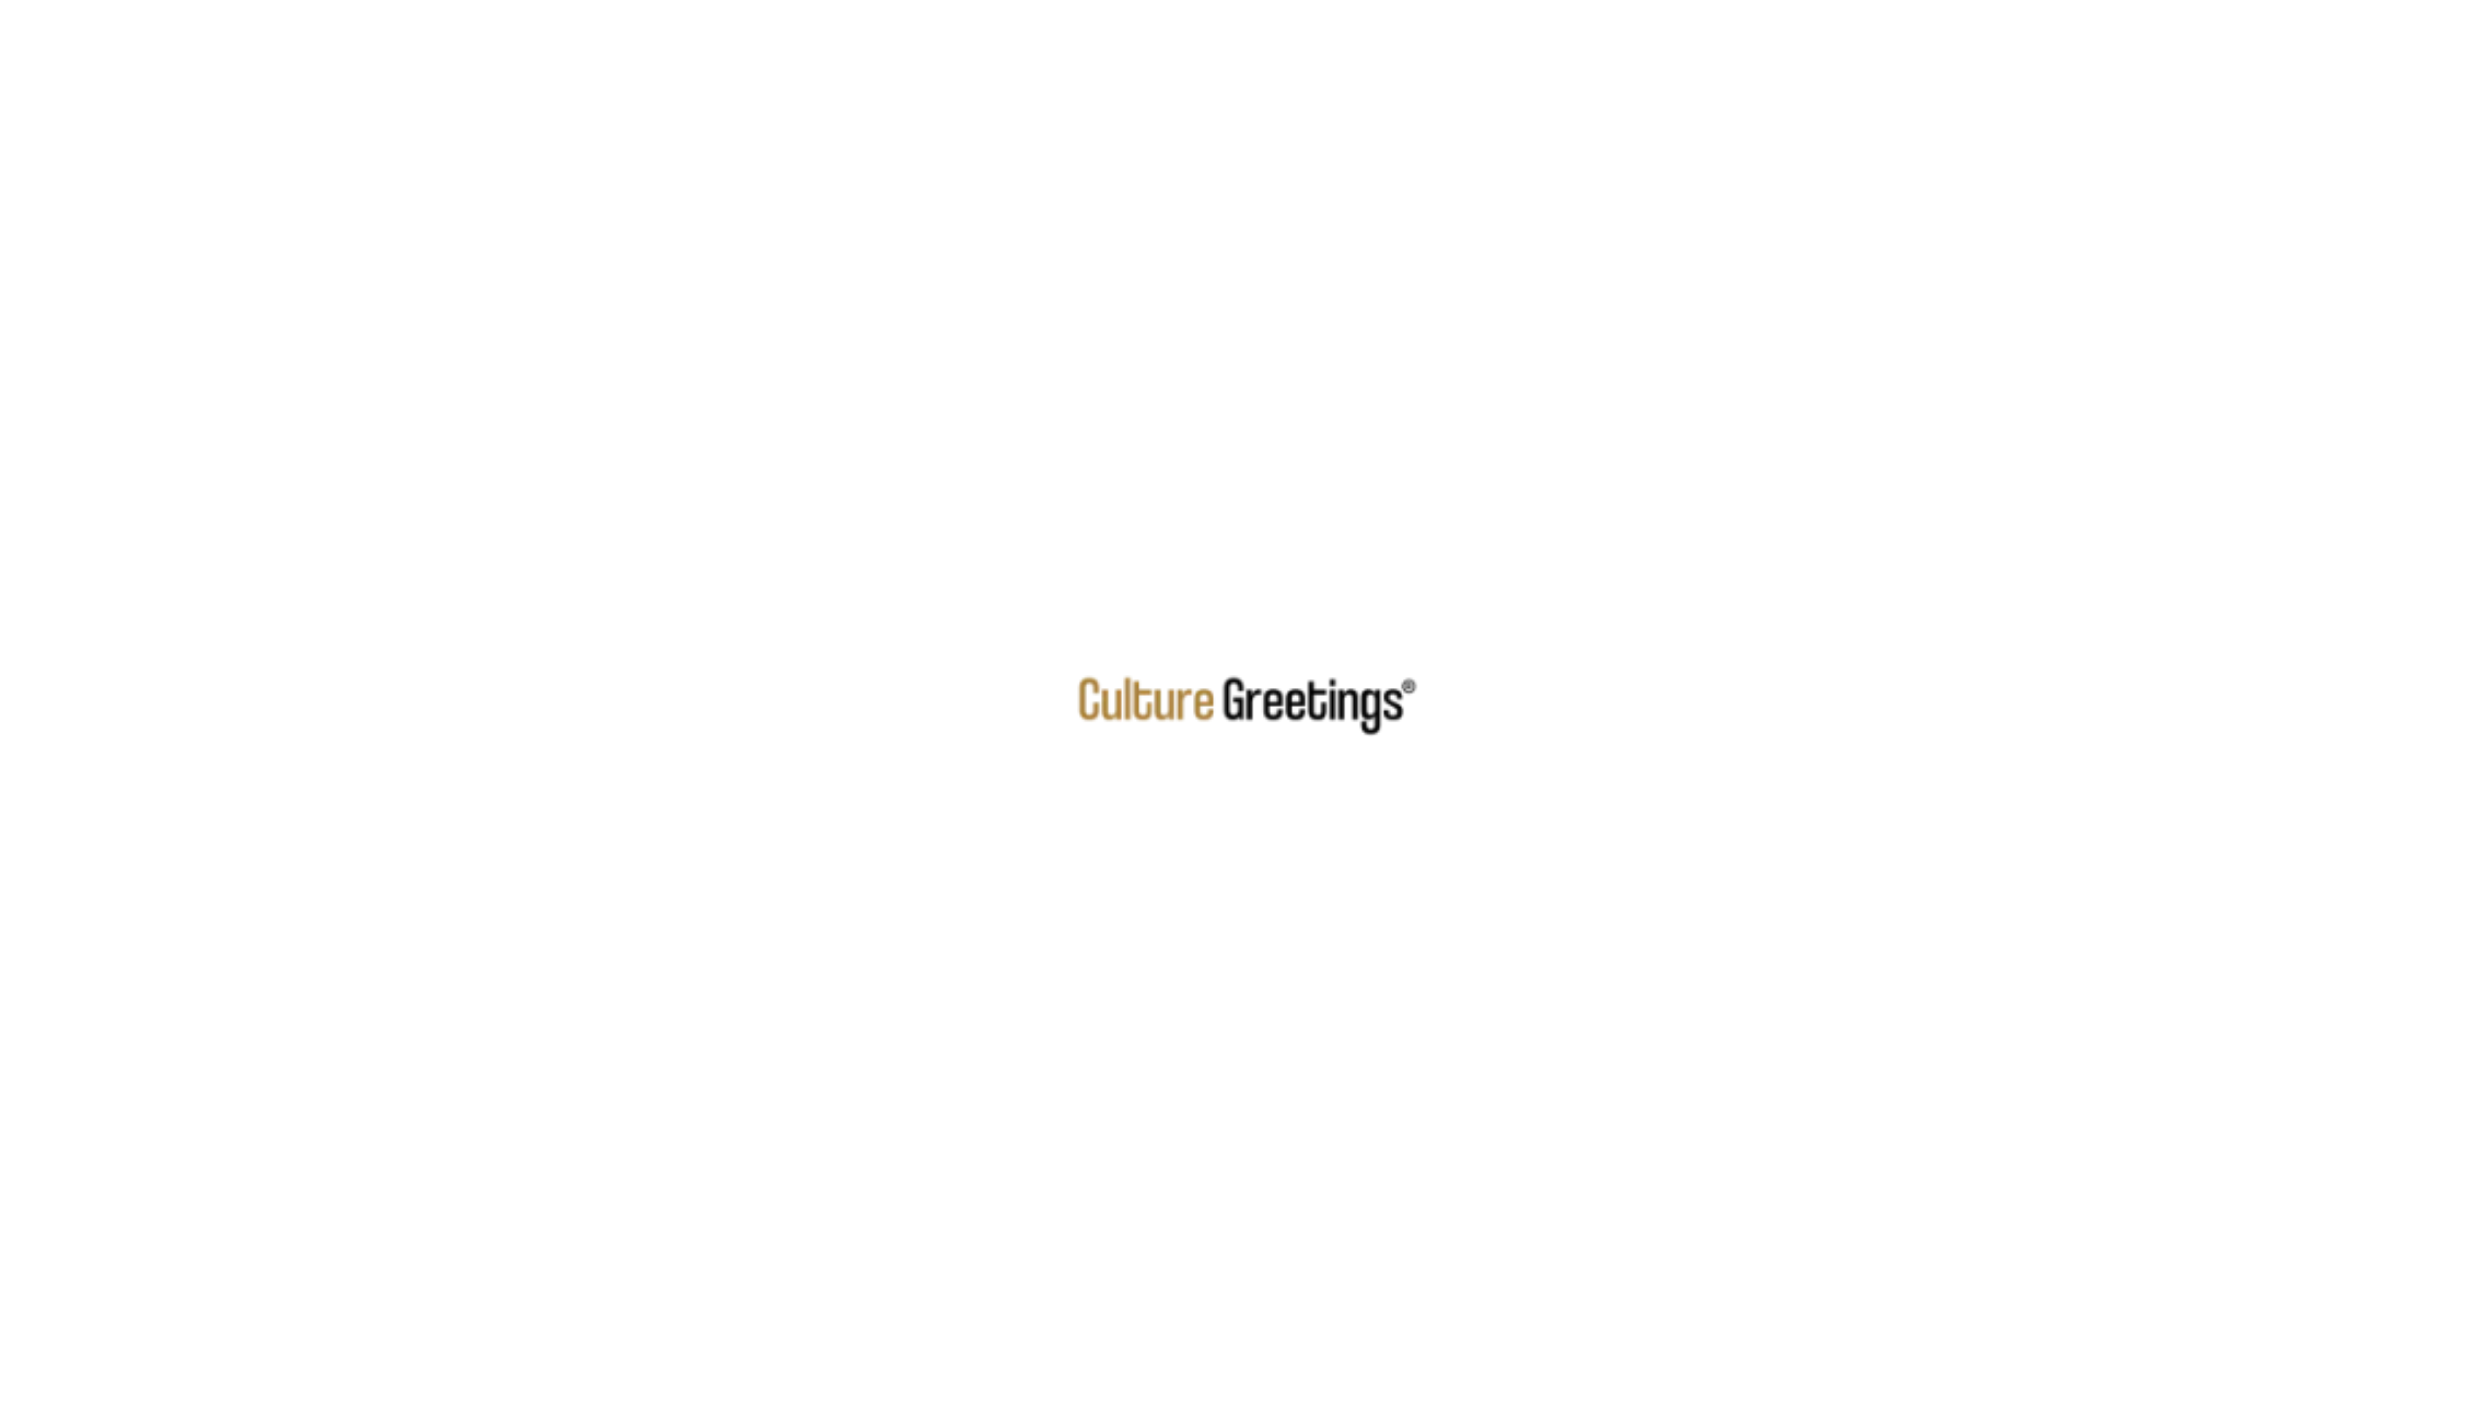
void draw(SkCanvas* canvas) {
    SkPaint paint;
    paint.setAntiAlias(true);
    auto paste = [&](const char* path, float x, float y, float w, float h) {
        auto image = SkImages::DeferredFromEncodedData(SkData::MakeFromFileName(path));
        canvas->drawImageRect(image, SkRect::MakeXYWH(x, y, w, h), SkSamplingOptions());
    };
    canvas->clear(SK_ColorWHITE);
    paste("pic1.png", 1077, 675, 341, 62);
}
